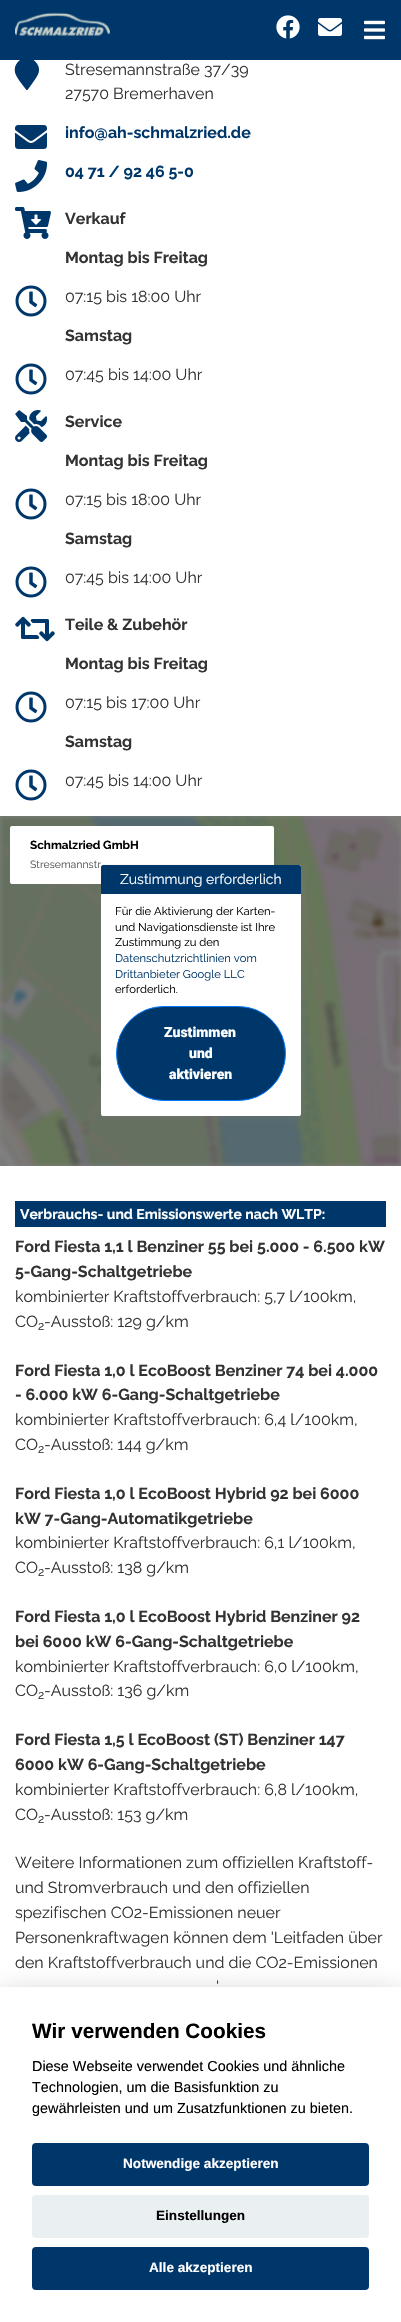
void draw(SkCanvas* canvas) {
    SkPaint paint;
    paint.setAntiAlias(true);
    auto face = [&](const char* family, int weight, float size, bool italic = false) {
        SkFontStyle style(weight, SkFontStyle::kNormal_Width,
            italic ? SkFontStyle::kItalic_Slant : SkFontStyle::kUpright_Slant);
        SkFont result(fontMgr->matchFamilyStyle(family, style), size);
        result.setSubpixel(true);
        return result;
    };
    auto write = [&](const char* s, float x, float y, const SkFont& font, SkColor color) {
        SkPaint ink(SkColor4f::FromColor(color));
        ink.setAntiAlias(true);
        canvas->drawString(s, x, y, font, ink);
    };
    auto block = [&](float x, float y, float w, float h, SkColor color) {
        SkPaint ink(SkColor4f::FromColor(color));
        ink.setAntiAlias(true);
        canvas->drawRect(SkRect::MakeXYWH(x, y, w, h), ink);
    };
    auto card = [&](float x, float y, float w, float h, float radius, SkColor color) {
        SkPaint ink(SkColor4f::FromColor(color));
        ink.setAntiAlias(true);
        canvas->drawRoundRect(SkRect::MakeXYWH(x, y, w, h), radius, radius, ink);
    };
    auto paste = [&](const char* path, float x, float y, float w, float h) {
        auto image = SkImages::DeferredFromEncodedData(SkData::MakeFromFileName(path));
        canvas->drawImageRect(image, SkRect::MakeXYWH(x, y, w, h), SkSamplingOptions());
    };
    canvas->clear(SK_ColorWHITE);
    paint.setColor(SkColorSetRGB(0, 55, 107));
    canvas->drawPath(SkPathBuilder().moveTo(26, 89.5f).cubicTo(23, 85.5f, 16, 77, 15, 72.5f).cubicTo(12.5f, 59.5f, 29.5f, 52.5f, 37, 63.5f).cubicTo(42.5f, 71.5f, 36, 78, 31.5f, 84.5f).lineTo(27.5f, 90).cubicTo(27, 90, 26, 90, 26, 89.5f).close().detach(), paint);
    block(0, 0, 401, 60, SkColorSetRGB(0, 55, 107));
    paste("pic1.png", 15, 12, 95, 24);
    paste("pic2.png", 276, 15, 24, 24);
    paste("pic3.png", 318, 18, 24, 18);
    paste("pic4.png", 364, 20, 21, 20);
    auto kFont1 = face("Raleway", 400, 16);
    write("Stresemannstraße 37/39", 65, 75, kFont1, SkColorSetRGB(51, 51, 51));
    write("27570 Bremerhaven", 65, 99, kFont1, SkColorSetRGB(51, 51, 51));
    paste("pic5.png", 15, 125, 32, 24);
    auto kFont2 = face("Raleway", 700, 16);
    write("info@ah-schmalzried.de", 65, 138, kFont2, SkColorSetRGB(0, 55, 107));
    paste("pic6.png", 15, 160, 33, 32);
    write("04 71 / 92 46 5-0", 65, 177, kFont2, SkColorSetRGB(0, 55, 107));
    paste("pic7.png", 15, 207, 36, 32);
    write("Verkauf", 65, 224, kFont2, SkColorSetRGB(51, 51, 51));
    write("Montag bis Freitag", 65, 263, kFont2, SkColorSetRGB(51, 51, 51));
    paste("pic8.png", 15, 285, 32, 32);
    write("07:15 bis 18:00 Uhr", 65, 302, kFont1, SkColorSetRGB(51, 51, 51));
    write("Samstag", 65, 341, kFont2, SkColorSetRGB(51, 51, 51));
    paste("pic8.png", 15, 363, 32, 32);
    write("07:45 bis 14:00 Uhr", 65, 380, kFont1, SkColorSetRGB(51, 51, 51));
    paste("pic9.png", 15, 410, 33, 32);
    write("Service", 65, 427, kFont2, SkColorSetRGB(51, 51, 51));
    write("Montag bis Freitag", 65, 466, kFont2, SkColorSetRGB(51, 51, 51));
    paste("pic8.png", 15, 488, 32, 32);
    write("07:15 bis 18:00 Uhr", 65, 505, kFont1, SkColorSetRGB(51, 51, 51));
    write("Samstag", 65, 544, kFont2, SkColorSetRGB(51, 51, 51));
    paste("pic8.png", 15, 566, 32, 32);
    write("07:45 bis 14:00 Uhr", 65, 583, kFont1, SkColorSetRGB(51, 51, 51));
    paste("pic10.png", 15, 616, 40, 26);
    write("Teile & Zubehör", 65, 630, kFont2, SkColorSetRGB(51, 51, 51));
    write("Montag bis Freitag", 65, 669, kFont2, SkColorSetRGB(51, 51, 51));
    paste("pic8.png", 15, 691, 32, 32);
    write("07:15 bis 17:00 Uhr", 65, 708, kFont1, SkColorSetRGB(51, 51, 51));
    write("Samstag", 65, 747, kFont2, SkColorSetRGB(51, 51, 51));
    paste("pic8.png", 15, 769, 32, 32);
    write("07:45 bis 14:00 Uhr", 65, 786, kFont1, SkColorSetRGB(51, 51, 51));
    block(0, 816, 401, 350, SkColorSetRGB(128, 128, 128));
    paste("pic11.png", 0, 816, 401, 350);
    card(10, 826, 264, 58, 2, SK_ColorWHITE);
    auto kFont3 = face("Raleway", 700, 11.75f);
    write("Schmalzried GmbH", 30, 849, kFont3, SK_ColorBLACK);
    auto kFont4 = face("Raleway", 400, 10.5f);
    write("Stresemannstr", 30, 868, kFont4, SkColorSetRGB(85, 85, 85));
    paint.setColor(SkColorSetARGB(51, 120, 120, 120));
    paint.setMaskFilter(SkMaskFilter::MakeBlur(kNormal_SkBlurStyle, 1));
    canvas->drawRoundRect(SkRect::MakeXYWH(101, 865, 204, 255), 4, 4, paint);
    paint.setMaskFilter(nullptr);
    card(101, 865, 200, 251, 2, SK_ColorWHITE);
    paint.setColor(SkColorSetRGB(0, 55, 107));
    canvas->drawPath(SkPathBuilder().moveTo(103, 865).lineTo(299, 865).cubicTo(300, 865, 301, 866, 301, 867).lineTo(301, 894).lineTo(101, 894).lineTo(101, 867).cubicTo(101, 866, 102, 865, 103, 865).close().detach(), paint);
    auto kFont5 = face("Raleway", 400, 14);
    write("Zustimmung erforderlich", 120, 884, kFont5, SK_ColorWHITE);
    auto kFont6 = face("Raleway", 400, 11.25f);
    write("Für die Aktivierung der Karten-", 115, 915, kFont6, SK_ColorBLACK);
    write("und Navigationsdienste ist Ihre", 115, 931, kFont6, SK_ColorBLACK);
    write("Zustimmung zu den", 115, 946, kFont6, SK_ColorBLACK);
    write("Datenschutzrichtlinien vom", 115, 962, kFont6, SkColorSetRGB(0, 55, 107));
    write("Drittanbieter Google LLC", 115, 978, kFont6, SkColorSetRGB(0, 55, 107));
    write("erforderlich.", 115, 993, kFont6, SK_ColorBLACK);
    canvas->drawRoundRect(SkRect::MakeXYWH(116.5f, 1006.5f, 169, 94), 47, 47, paint);
    paint.setStyle(SkPaint::kStroke_Style);
    paint.setStrokeWidth(1);
    paint.setColor(SkColorSetRGB(0, 123, 255));
    canvas->drawRoundRect(SkRect::MakeXYWH(116.5f, 1006.5f, 169, 94), 47, 47, paint);
    auto kFont7 = face("Roboto", 900, 14);
    write("Zustimmen", 164, 1037, kFont7, SK_ColorWHITE);
    write("und", 189, 1058, kFont7, SK_ColorWHITE);
    write("aktivieren", 169, 1079, kFont7, SK_ColorWHITE);
    block(15, 1201, 371, 26, SkColorSetRGB(0, 55, 107));
    auto kFont8 = face("Raleway", 700, 14);
    write("Verbrauchs- und Emissionswerte nach WLTP:", 20, 1219, kFont8, SK_ColorWHITE);
    write("Ford Fiesta 1,1 l Benziner 55 bei 5.000 - 6.500 kW", 15, 1252, kFont2, SkColorSetRGB(51, 51, 51));
    write("5-Gang-Schaltgetriebe", 15, 1277, kFont2, SkColorSetRGB(51, 51, 51));
    write("kombinierter Kraftstoffverbrauch: 5,7 l/100km,", 15, 1302, kFont1, SkColorSetRGB(51, 51, 51));
    write("CO", 15, 1327, kFont1, SkColorSetRGB(51, 51, 51));
    auto kFont9 = face("Raleway", 400, 12);
    write("2", 38, 1330, kFont9, SkColorSetRGB(51, 51, 51));
    write("-Ausstoß: 129 g/km", 44, 1327, kFont1, SkColorSetRGB(51, 51, 51));
    write("Ford Fiesta 1,0 l EcoBoost Benziner 74 bei 4.000", 15, 1376, kFont2, SkColorSetRGB(51, 51, 51));
    write("- 6.000 kW 6-Gang-Schaltgetriebe", 15, 1400, kFont2, SkColorSetRGB(51, 51, 51));
    write("kombinierter Kraftstoffverbrauch: 6,4 l/100km,", 15, 1425, kFont1, SkColorSetRGB(51, 51, 51));
    write("CO", 15, 1450, kFont1, SkColorSetRGB(51, 51, 51));
    write("2", 38, 1453, kFont9, SkColorSetRGB(51, 51, 51));
    write("-Ausstoß: 144 g/km", 44, 1450, kFont1, SkColorSetRGB(51, 51, 51));
    write("Ford Fiesta 1,0 l EcoBoost Hybrid 92 bei 6000", 15, 1499, kFont2, SkColorSetRGB(51, 51, 51));
    write("kW 7-Gang-Automatikgetriebe", 15, 1524, kFont2, SkColorSetRGB(51, 51, 51));
    write("kombinierter Kraftstoffverbrauch: 6,1 l/100km,", 15, 1548, kFont1, SkColorSetRGB(51, 51, 51));
    write("CO", 15, 1573, kFont1, SkColorSetRGB(51, 51, 51));
    write("2", 38, 1576, kFont9, SkColorSetRGB(51, 51, 51));
    write("-Ausstoß: 138 g/km", 44, 1573, kFont1, SkColorSetRGB(51, 51, 51));
    write("Ford Fiesta 1,0 l EcoBoost Hybrid Benziner 92", 15, 1622, kFont2, SkColorSetRGB(51, 51, 51));
    write("bei 6000 kW 6-Gang-Schaltgetriebe", 15, 1647, kFont2, SkColorSetRGB(51, 51, 51));
    write("kombinierter Kraftstoffverbrauch: 6,0 l/100km,", 15, 1672, kFont1, SkColorSetRGB(51, 51, 51));
    write("CO", 15, 1696, kFont1, SkColorSetRGB(51, 51, 51));
    write("2", 38, 1699, kFont9, SkColorSetRGB(51, 51, 51));
    write("-Ausstoß: 136 g/km", 44, 1696, kFont1, SkColorSetRGB(51, 51, 51));
    write("Ford Fiesta 1,5 l EcoBoost (ST) Benziner 147", 15, 1745, kFont2, SkColorSetRGB(51, 51, 51));
    write("6000 kW 6-Gang-Schaltgetriebe", 15, 1770, kFont2, SkColorSetRGB(51, 51, 51));
    write("kombinierter Kraftstoffverbrauch: 6,8 l/100km,", 15, 1795, kFont1, SkColorSetRGB(51, 51, 51));
    write("CO", 15, 1820, kFont1, SkColorSetRGB(51, 51, 51));
    write("2", 38, 1823, kFont9, SkColorSetRGB(51, 51, 51));
    write("-Ausstoß: 153 g/km", 44, 1820, kFont1, SkColorSetRGB(51, 51, 51));
    write("Weitere Informationen zum offiziellen Kraftstoff-", 15, 1868, kFont1, SkColorSetRGB(51, 51, 51));
    write("und Stromverbrauch und den offiziellen", 15, 1893, kFont1, SkColorSetRGB(51, 51, 51));
    write("spezifischen CO2-Emissionen neuer", 15, 1918, kFont1, SkColorSetRGB(51, 51, 51));
    write("Personenkraftwagen können dem 'Leitfaden über", 15, 1943, kFont1, SkColorSetRGB(51, 51, 51));
    write("den Kraftstoffverbrauch und die CO2-Emissionen", 15, 1968, kFont1, SkColorSetRGB(51, 51, 51));
    write("'", 216, 1992, kFont1, SkColorSetRGB(51, 51, 51));
    paint.setStyle(SkPaint::kFill_Style);
    paint.setColor(SkColorSetARGB(71, 2, 2, 3));
    paint.setMaskFilter(SkMaskFilter::MakeBlur(kNormal_SkBlurStyle, 15));
    canvas->drawRect(SkRect::MakeXYWH(0, 1997, 401, 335), paint);
    paint.setMaskFilter(nullptr);
    block(0, 1987, 401, 335, SK_ColorWHITE);
    auto kFont10 = face("Liberation Sans", 700, 20.75f);
    write("Wir verwenden Cookies", 32, 2038, kFont10, SK_ColorBLACK);
    auto kFont11 = face("Liberation Sans", 400, 14.4f);
    write("Diese Webseite verwendet Cookies und ähnliche", 32, 2071, kFont11, SK_ColorBLACK);
    write("Technologien, um die Basisfunktion zu", 32, 2092, kFont11, SK_ColorBLACK);
    write("gewährleisten und um Zusatzfunktionen zu bieten.", 32, 2113, kFont11, SK_ColorBLACK);
    card(32, 2143, 337, 43, 4, SkColorSetRGB(0, 55, 107));
    auto kFont12 = face("Liberation Sans", 700, 13.6f);
    write("Notwendige akzeptieren", 123, 2168, kFont12, SK_ColorWHITE);
    card(32, 2195, 337, 43, 4, SkColorSetRGB(234, 239, 242));
    write("Einstellungen", 156, 2220, kFont12, SK_ColorBLACK);
    card(32, 2247, 337, 43, 4, SkColorSetRGB(0, 55, 107));
    write("Alle akzeptieren", 149, 2272, kFont12, SK_ColorWHITE);
}
